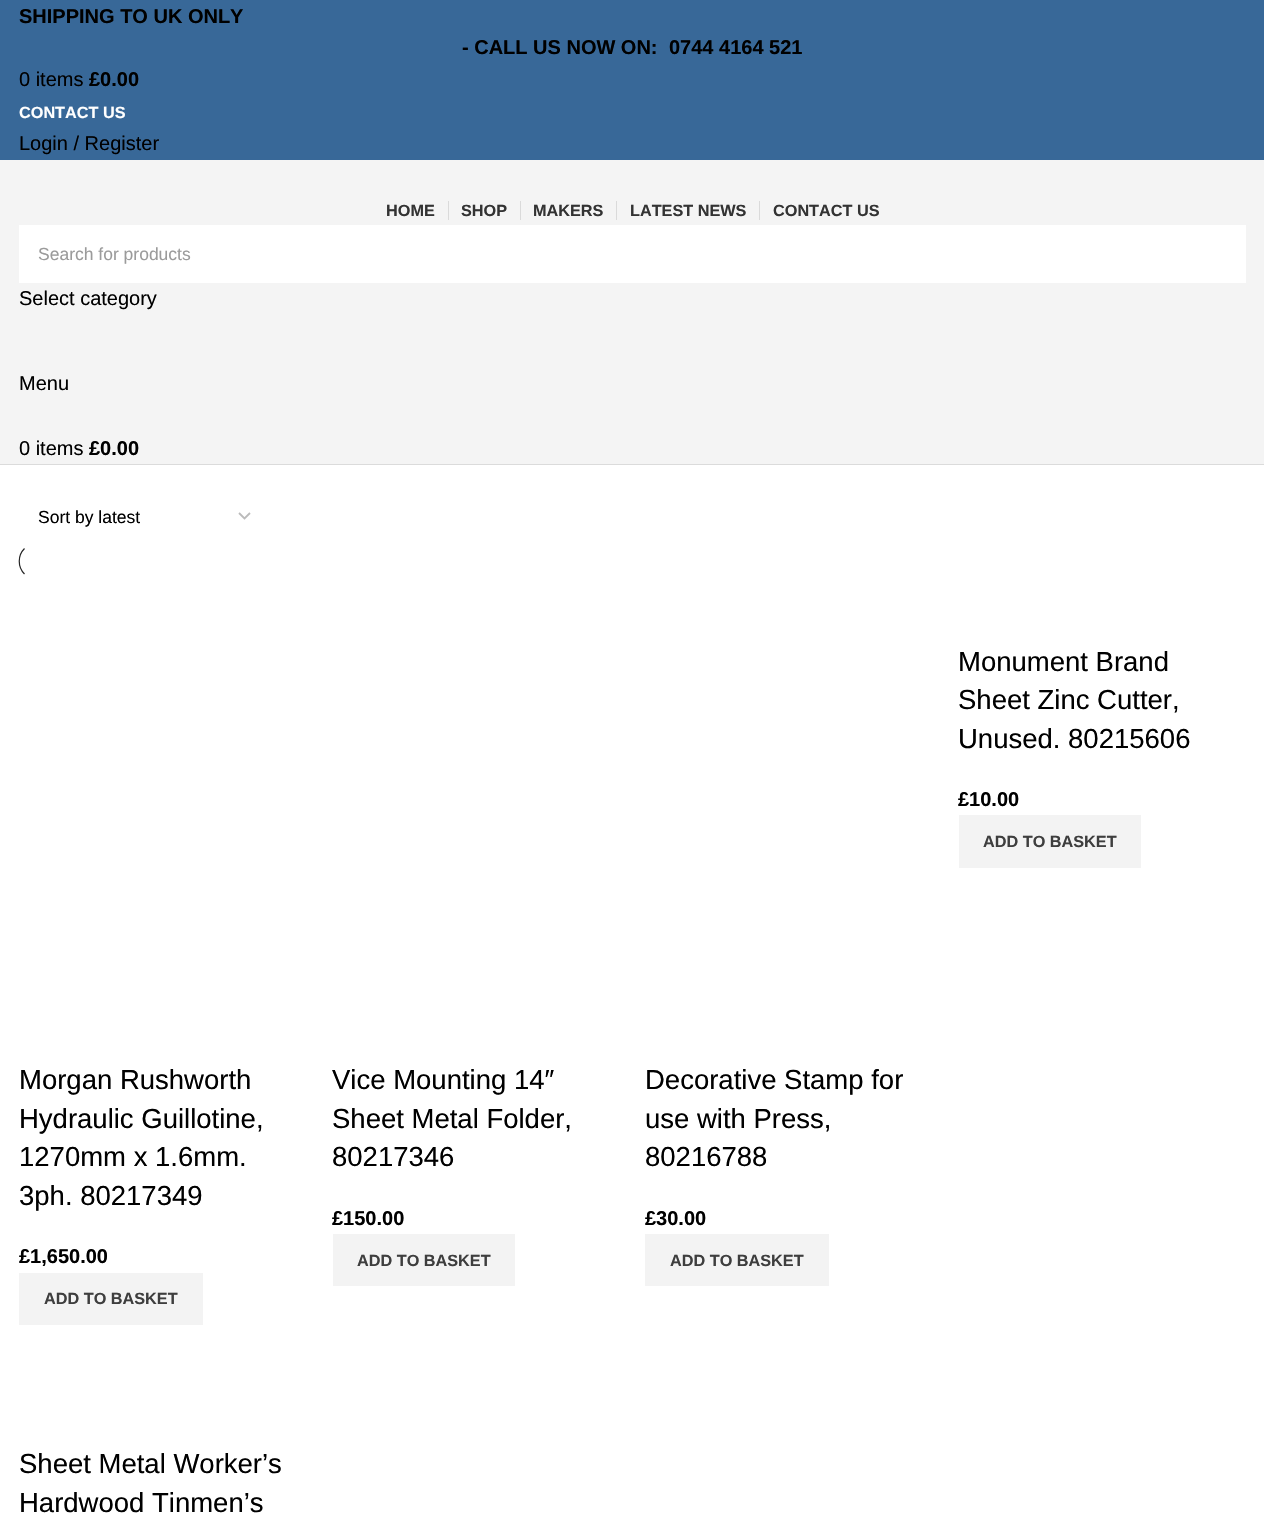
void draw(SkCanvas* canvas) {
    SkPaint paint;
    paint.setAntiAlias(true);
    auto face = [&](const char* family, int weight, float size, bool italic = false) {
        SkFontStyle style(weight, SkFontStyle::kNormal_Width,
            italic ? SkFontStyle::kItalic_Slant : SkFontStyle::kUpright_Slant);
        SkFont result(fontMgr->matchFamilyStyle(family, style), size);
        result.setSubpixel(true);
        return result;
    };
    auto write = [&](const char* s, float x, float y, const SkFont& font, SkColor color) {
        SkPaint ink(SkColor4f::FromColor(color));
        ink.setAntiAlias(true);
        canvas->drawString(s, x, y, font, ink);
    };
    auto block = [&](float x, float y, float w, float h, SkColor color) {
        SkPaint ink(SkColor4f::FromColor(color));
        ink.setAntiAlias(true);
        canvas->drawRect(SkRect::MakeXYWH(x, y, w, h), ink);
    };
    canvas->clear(SK_ColorWHITE);
    block(0, 0, 1264, 160, SkColorSetRGB(56, 104, 152));
    auto kFont1 = face("Liberation Sans", 700, 20);
    write("SHIPPING TO UK ONLY", 19, 23, kFont1, SK_ColorBLACK);
    write("- CALL US NOW ON:", 462, 54, kFont1, SK_ColorBLACK);
    write("0744 4164 521", 669, 54, kFont1, SK_ColorBLACK);
    auto kFont2 = face("Liberation Sans", 400, 20);
    write("0 items", 19, 86, kFont2, SK_ColorBLACK);
    write("£0.00", 89, 86, kFont1, SK_ColorBLACK);
    auto kFont3 = face("Liberation Sans", 700, 16.25f);
    write("CONTACT US", 19, 118, kFont3, SK_ColorWHITE);
    write("Login / Register", 19, 150, kFont2, SK_ColorBLACK);
    block(0, 160, 1264, 304, SkColorSetRGB(244, 244, 244));
    block(0, 464, 1264, 1, SkColorSetRGB(219, 219, 219));
    write("HOME", 386, 216, kFont3, SkColorSetRGB(51, 51, 51));
    block(448, 201, 1, 19, SkColorSetRGB(218, 218, 218));
    write("SHOP", 461, 216, kFont3, SkColorSetRGB(51, 51, 51));
    block(520, 201, 1, 19, SkColorSetRGB(218, 218, 218));
    write("MAKERS", 533, 216, kFont3, SkColorSetRGB(51, 51, 51));
    block(616, 201, 1, 19, SkColorSetRGB(218, 218, 218));
    write("LATEST NEWS", 630, 216, kFont3, SkColorSetRGB(51, 51, 51));
    block(759, 201, 1, 19, SkColorSetRGB(218, 218, 218));
    write("CONTACT US", 773, 216, kFont3, SkColorSetRGB(51, 51, 51));
    block(19, 225, 1227, 58, SK_ColorWHITE);
    auto kFont4 = face("Liberation Sans", 400, 17.5f);
    write("Search for products", 38, 260, kFont4, SkColorSetRGB(155, 155, 155));
    write("Select category", 19, 305, kFont2, SK_ColorBLACK);
    write("Menu", 19, 390, kFont2, SK_ColorBLACK);
    write("0 items", 19, 455, kFont2, SK_ColorBLACK);
    write("£0.00", 89, 455, kFont1, SK_ColorBLACK);
    paint.setStyle(SkPaint::kStroke_Style);
    paint.setStrokeWidth(1.8f);
    paint.setColor(SkColorSetRGB(187, 187, 187));
    canvas->drawPath(SkPathBuilder().moveTo(239, 513).lineTo(244.5f, 518.5f).lineTo(250, 513).detach(), paint);
    write("Sort by latest", 38, 523, kFont4, SK_ColorBLACK);
    paint.setStrokeWidth(1.2f);
    paint.setColor(SkColorSetRGB(36, 36, 36));
    canvas->drawPath(SkPathBuilder().moveTo(24.5f, 574).cubicTo(17.5f, 567, 17.5f, 555.5f, 24.5f, 548.5f).detach(), paint);
    auto kFont5 = face("Liberation Sans", 400, 27.5f);
    write("Monument Brand", 958, 671, kFont5, SK_ColorBLACK);
    write("Sheet Zinc Cutter,", 958, 709, kFont5, SK_ColorBLACK);
    write("Unused. 80215606", 958, 748, kFont5, SK_ColorBLACK);
    write("£10.00", 958, 806, kFont1, SK_ColorBLACK);
    block(959, 815, 182, 53, SkColorSetRGB(243, 243, 243));
    write("ADD TO BASKET", 983, 847, kFont3, SkColorSetRGB(62, 62, 62));
    write("Morgan Rushworth", 19, 1089, kFont5, SK_ColorBLACK);
    write("Hydraulic Guillotine,", 19, 1128, kFont5, SK_ColorBLACK);
    write("1270mm x 1.6mm.", 19, 1166, kFont5, SK_ColorBLACK);
    write("3ph. 80217349", 19, 1205, kFont5, SK_ColorBLACK);
    write("£1,650.00", 19, 1263, kFont1, SK_ColorBLACK);
    block(19, 1273, 184, 52, SkColorSetRGB(243, 243, 243));
    write("ADD TO BASKET", 44, 1304, kFont3, SkColorSetRGB(62, 62, 62));
    write("Vice Mounting 14″", 332, 1089, kFont5, SK_ColorBLACK);
    write("Sheet Metal Folder,", 332, 1128, kFont5, SK_ColorBLACK);
    write("80217346", 332, 1166, kFont5, SK_ColorBLACK);
    write("£150.00", 332, 1225, kFont1, SK_ColorBLACK);
    block(333, 1234, 182, 52, SkColorSetRGB(243, 243, 243));
    write("ADD TO BASKET", 357, 1266, kFont3, SkColorSetRGB(62, 62, 62));
    write("Decorative Stamp for", 645, 1089, kFont5, SK_ColorBLACK);
    write("use with Press,", 645, 1128, kFont5, SK_ColorBLACK);
    write("80216788", 645, 1166, kFont5, SK_ColorBLACK);
    write("£30.00", 645, 1225, kFont1, SK_ColorBLACK);
    block(645, 1234, 184, 52, SkColorSetRGB(243, 243, 243));
    write("ADD TO BASKET", 670, 1266, kFont3, SkColorSetRGB(62, 62, 62));
    write("Sheet Metal Worker’s", 19, 1473, kFont5, SK_ColorBLACK);
    write("Hardwood Tinmen’s", 19, 1512, kFont5, SK_ColorBLACK);
}
